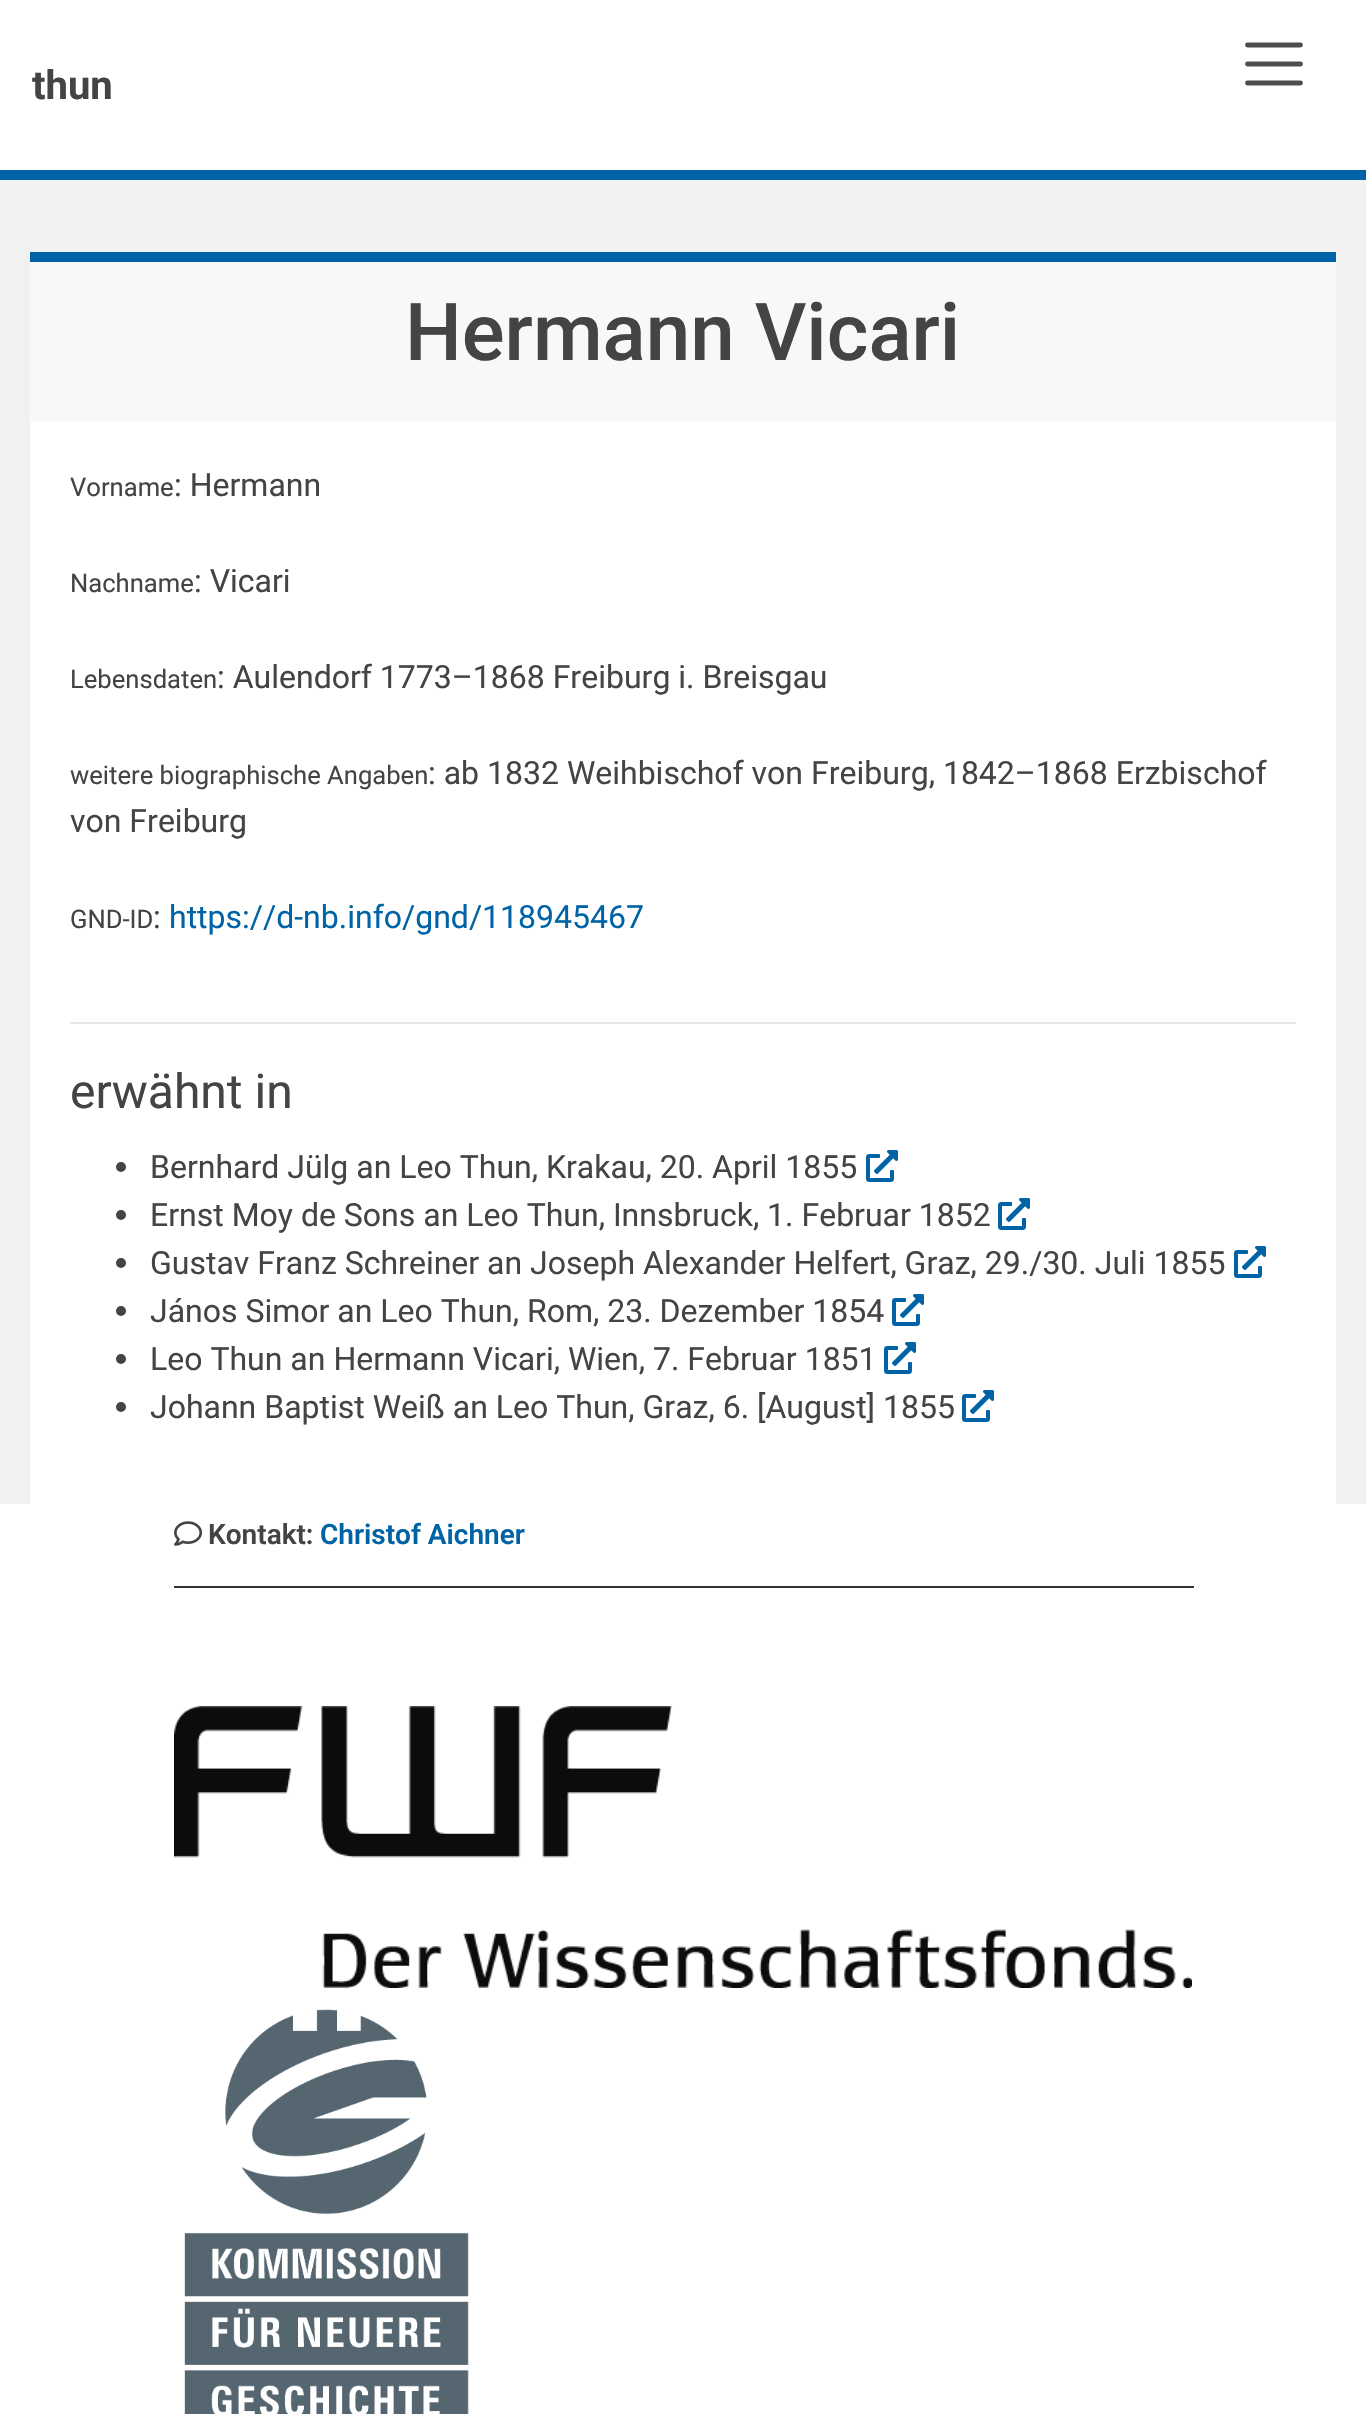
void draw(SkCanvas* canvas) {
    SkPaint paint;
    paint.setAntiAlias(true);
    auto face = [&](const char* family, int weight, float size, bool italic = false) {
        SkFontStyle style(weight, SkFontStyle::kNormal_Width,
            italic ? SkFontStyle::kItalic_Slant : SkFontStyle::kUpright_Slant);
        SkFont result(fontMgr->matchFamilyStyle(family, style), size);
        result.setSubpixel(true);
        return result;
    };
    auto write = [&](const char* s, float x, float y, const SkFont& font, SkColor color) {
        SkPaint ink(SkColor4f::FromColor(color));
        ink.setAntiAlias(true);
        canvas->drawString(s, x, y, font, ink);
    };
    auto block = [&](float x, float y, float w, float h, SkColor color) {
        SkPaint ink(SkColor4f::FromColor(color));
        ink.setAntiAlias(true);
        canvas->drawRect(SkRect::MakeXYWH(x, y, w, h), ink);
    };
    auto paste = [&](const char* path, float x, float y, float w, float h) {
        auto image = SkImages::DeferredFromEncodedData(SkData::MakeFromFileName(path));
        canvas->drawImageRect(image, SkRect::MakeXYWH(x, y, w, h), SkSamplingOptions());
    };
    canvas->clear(SkColorSetRGB(241, 241, 241));
    block(0, 0, 1366, 170, SK_ColorWHITE);
    block(0, 170, 1366, 10, SkColorSetRGB(0, 99, 166));
    auto kFont1 = face("Roboto", 700, 40);
    write("thun", 32, 99, kFont1, SkColorSetRGB(68, 68, 68));
    paint.setStyle(SkPaint::kStroke_Style);
    paint.setStrokeWidth(4.8f);
    paint.setStrokeCap(SkPaint::kRound_Cap);
    paint.setColor(SkColorSetRGB(77, 77, 77));
    canvas->drawPath(SkPathBuilder().moveTo(1247.5f, 45).lineTo(1300.5f, 45).moveTo(1247.5f, 64).lineTo(1300.5f, 64).moveTo(1247.5f, 83).lineTo(1300.5f, 83).detach(), paint);
    block(30, 422, 1306, 1082, SK_ColorWHITE);
    block(30, 252, 1306, 10, SkColorSetRGB(0, 99, 166));
    block(30, 262, 1306, 160, SkColorSetRGB(248, 248, 248));
    auto kFont2 = face("Roboto", 500, 80);
    write("Hermann Vicari", 405, 360, kFont2, SkColorSetRGB(68, 68, 68));
    auto kFont3 = face("Roboto", 400, 25.6f);
    write("Vorname", 70, 496, kFont3, SkColorSetRGB(68, 68, 68));
    auto kFont4 = face("Roboto", 400, 32);
    write(": Hermann", 174, 496, kFont4, SkColorSetRGB(68, 68, 68));
    write("Nachname", 70, 592, kFont3, SkColorSetRGB(68, 68, 68));
    write(": Vicari", 194, 592, kFont4, SkColorSetRGB(68, 68, 68));
    write("Lebensdaten", 70, 688, kFont3, SkColorSetRGB(68, 68, 68));
    write(": Aulendorf 1773–1868 Freiburg i. Breisgau", 217, 688, kFont4, SkColorSetRGB(68, 68, 68));
    write("weitere biographische Angaben", 70, 784, kFont3, SkColorSetRGB(68, 68, 68));
    write(": ab 1832 Weihbischof von Freiburg, 1842–1868 Erzbischof", 428, 784, kFont4, SkColorSetRGB(68, 68, 68));
    write("von Freiburg", 70, 832, kFont4, SkColorSetRGB(68, 68, 68));
    write("GND-ID", 70, 928, kFont3, SkColorSetRGB(68, 68, 68));
    write(":", 153, 928, kFont4, SkColorSetRGB(68, 68, 68));
    write("https://d-nb.info/gnd/118945467", 169, 928, kFont4, SkColorSetRGB(0, 99, 166));
    block(70, 1022, 1226, 2, SkColorSetRGB(230, 230, 230));
    auto kFont5 = face("Roboto", 400, 48);
    write("erwähnt in", 70, 1108, kFont5, SkColorSetRGB(68, 68, 68));
    paint.setStyle(SkPaint::kFill_Style);
    paint.setColor(SkColorSetRGB(68, 68, 68));
    canvas->drawCircle(121, 1167, 5, paint);
    write("Bernhard Jülg an Leo Thun, Krakau, 20. April 1855", 150, 1178, kFont4, SkColorSetRGB(68, 68, 68));
    paste("pic1.png", 866, 1150, 32, 32);
    canvas->drawCircle(121, 1215, 5, paint);
    write("Ernst Moy de Sons an Leo Thun, Innsbruck, 1. Februar 1852", 150, 1226, kFont4, SkColorSetRGB(68, 68, 68));
    paste("pic1.png", 998, 1198, 32, 32);
    canvas->drawCircle(121, 1263, 5, paint);
    write("Gustav Franz Schreiner an Joseph Alexander Helfert, Graz, 29./30. Juli 1855", 150, 1274, kFont4, SkColorSetRGB(68, 68, 68));
    paste("pic1.png", 1234, 1246, 32, 32);
    canvas->drawCircle(121, 1311, 5, paint);
    write("János Simor an Leo Thun, Rom, 23. Dezember 1854", 150, 1322, kFont4, SkColorSetRGB(68, 68, 68));
    paste("pic1.png", 892, 1294, 32, 32);
    canvas->drawCircle(121, 1359, 5, paint);
    write("Leo Thun an Hermann Vicari, Wien, 7. Februar 1851", 150, 1370, kFont4, SkColorSetRGB(68, 68, 68));
    paste("pic1.png", 884, 1342, 32, 32);
    canvas->drawCircle(121, 1407, 5, paint);
    write("Johann Baptist Weiß an Leo Thun, Graz, 6. [August] 1855", 150, 1418, kFont4, SkColorSetRGB(68, 68, 68));
    paste("pic1.png", 962, 1390, 32, 32);
    block(0, 1504, 1366, 910, SK_ColorWHITE);
    block(174, 1586, 1020, 2, SkColorSetRGB(51, 51, 51));
    paste("pic2.png", 174, 1521, 29, 25);
    auto kFont6 = face("Roboto", 600, 28);
    write("Kontakt:", 208, 1544, kFont6, SkColorSetRGB(68, 68, 68));
    write("Christof Aichner", 320, 1544, kFont6, SkColorSetRGB(0, 99, 166));
    paste("pic3.png", 174, 1706, 1018, 282);
    paste("pic4.png", 184, 2009, 285, 405);
}
